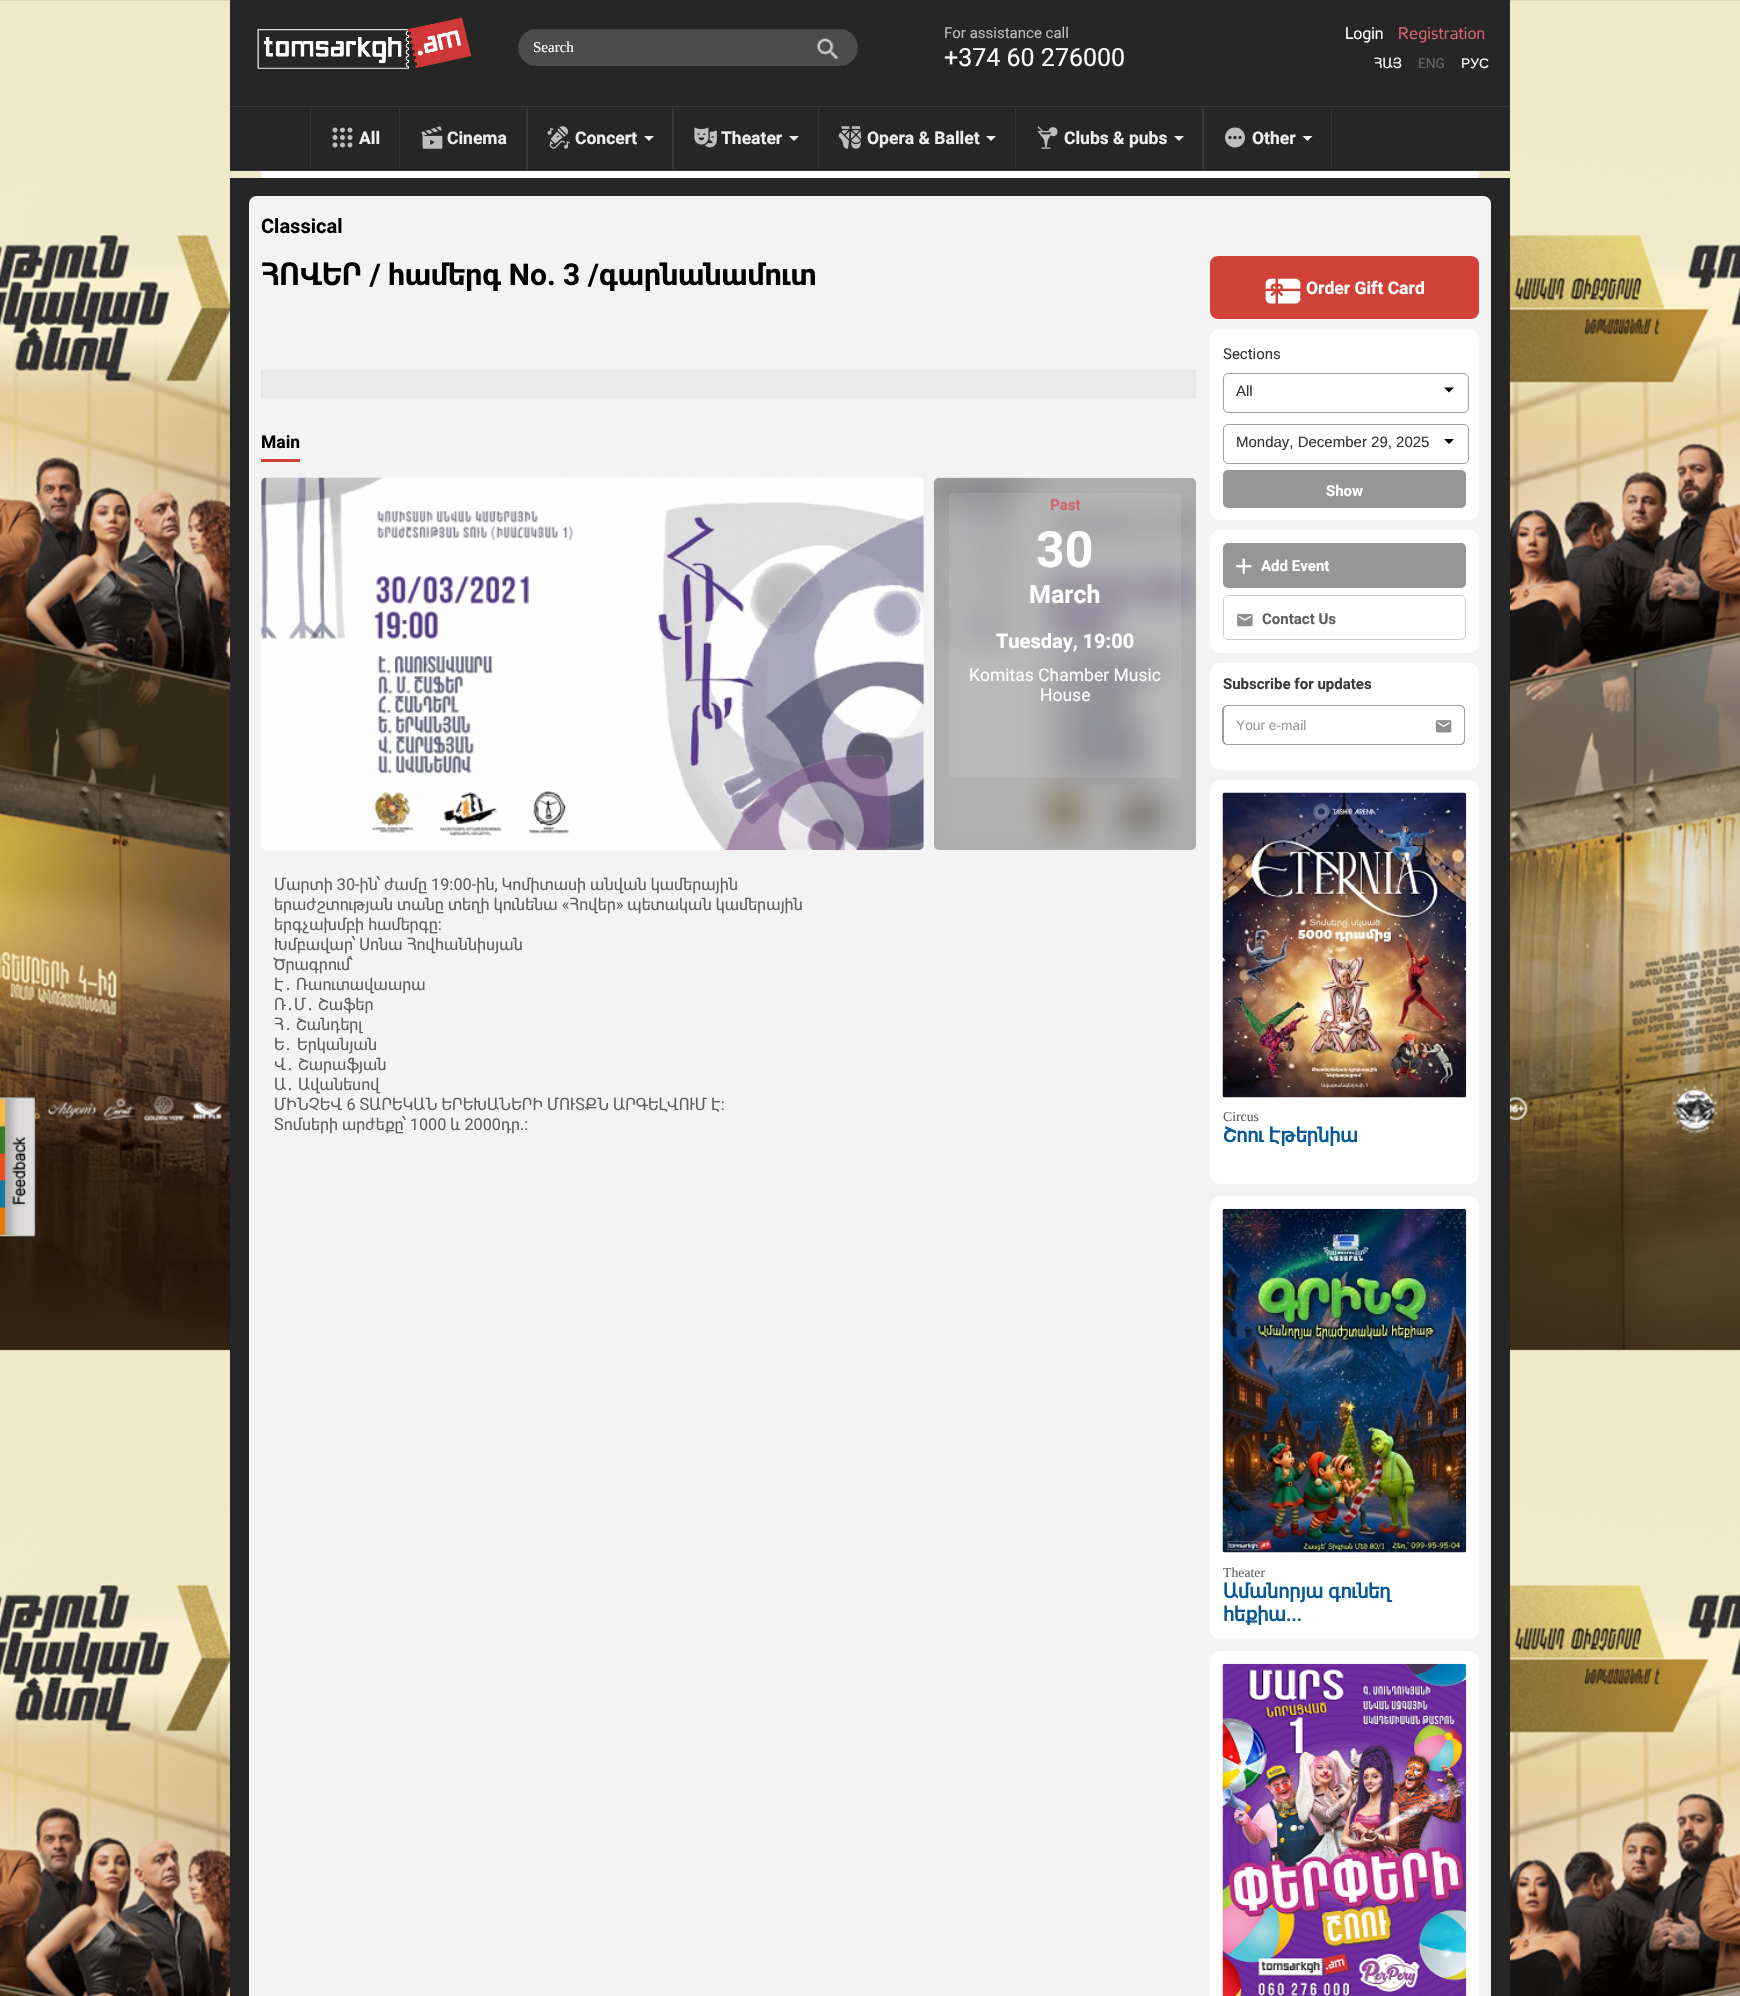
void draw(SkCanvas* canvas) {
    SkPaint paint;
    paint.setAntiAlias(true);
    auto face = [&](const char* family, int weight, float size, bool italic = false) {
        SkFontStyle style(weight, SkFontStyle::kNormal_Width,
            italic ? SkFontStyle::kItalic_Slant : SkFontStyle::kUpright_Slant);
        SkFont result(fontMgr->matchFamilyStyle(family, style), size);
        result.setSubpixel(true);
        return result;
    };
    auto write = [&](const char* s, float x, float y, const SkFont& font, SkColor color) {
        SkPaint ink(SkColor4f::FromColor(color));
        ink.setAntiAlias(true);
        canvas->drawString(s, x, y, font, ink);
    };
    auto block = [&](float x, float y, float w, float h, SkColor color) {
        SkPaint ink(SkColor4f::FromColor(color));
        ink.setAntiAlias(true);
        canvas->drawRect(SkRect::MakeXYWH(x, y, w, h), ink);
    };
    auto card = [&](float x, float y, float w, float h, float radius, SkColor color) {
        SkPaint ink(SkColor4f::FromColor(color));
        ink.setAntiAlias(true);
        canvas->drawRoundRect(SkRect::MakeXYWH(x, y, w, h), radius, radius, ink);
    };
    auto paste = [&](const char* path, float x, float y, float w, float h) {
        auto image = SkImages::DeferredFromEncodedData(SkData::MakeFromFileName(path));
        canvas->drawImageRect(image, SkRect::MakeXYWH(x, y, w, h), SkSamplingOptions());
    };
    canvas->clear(SK_ColorWHITE);
    paste("pic1.png", 0, 0, 1740, 1996);
    block(230, 0, 1280, 170, SkColorSetRGB(38, 38, 38));
    paste("pic2.png", 257, 17, 215, 52);
    auto kFont1 = face("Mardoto", 400, 15);
    write("For assistance call", 944, 38, kFont1, SkColorSetRGB(189, 189, 189));
    auto kFont2 = face("Mardoto", 400, 25);
    write("+374 60 276000", 944, 66, kFont2, SK_ColorWHITE);
    auto kFont3 = face("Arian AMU", 400, 16.25f);
    write("Login", 1345, 39, kFont3, SK_ColorWHITE);
    write("Registration", 1398, 39, kFont3, SkColorSetRGB(211, 100, 106));
    card(518, 29, 340, 37, 18.5f, SkColorSetRGB(75, 75, 75));
    paste("pic3.png", 817, 38, 21, 21);
    auto kFont4 = face("Liberation Serif", 400, 15);
    write("Search", 533, 52, kFont4, SK_ColorWHITE);
    auto kFont5 = face("Mardoto", 400, 13.75f);
    write("ՀԱՅ", 1374, 68, kFont5, SK_ColorWHITE);
    write("ENG", 1418, 68, kFont5, SkColorSetRGB(103, 103, 103));
    auto kFont6 = face("Liberation Sans", 400, 13.75f);
    write("РУС", 1461, 68, kFont6, SK_ColorWHITE);
    block(230, 106, 1280, 1, SkColorSetRGB(55, 55, 55));
    block(230, 170, 1280, 1, SkColorSetRGB(55, 55, 55));
    paint.setColor(SkColorSetRGB(55, 55, 55));
    canvas->drawPath(SkPathBuilder().moveTo(400, 108).lineTo(400, 170).lineTo(399, 168).lineTo(399, 108).close().detach(), paint);
    canvas->drawPath(SkPathBuilder().moveTo(310, 170).lineTo(310, 108).lineTo(311, 108).lineTo(311, 168).close().detach(), paint);
    paste("pic4.png", 332, 127, 21, 21);
    auto kFont7 = face("Mardoto", 700, 17.5f);
    write("All", 359, 144, kFont7, SkColorSetRGB(238, 238, 238));
    canvas->drawPath(SkPathBuilder().moveTo(528, 108).lineTo(528, 170).lineTo(526, 168).lineTo(526, 108).close().detach(), paint);
    paste("pic5.png", 421, 126, 22, 23);
    write("Cinema", 447, 144, kFont7, SkColorSetRGB(238, 238, 238));
    canvas->drawPath(SkPathBuilder().moveTo(674, 108).lineTo(674, 170).lineTo(672, 168).lineTo(672, 108).close().detach(), paint);
    paste("pic6.png", 547, 126, 23, 23);
    write("Concert", 575, 144, kFont7, SkColorSetRGB(238, 238, 238));
    paint.setColor(SkColorSetRGB(238, 238, 238));
    canvas->drawPath(SkPathBuilder().moveTo(644, 136).lineTo(654, 136).lineTo(649, 141).close().detach(), paint);
    paint.setColor(SkColorSetRGB(55, 55, 55));
    canvas->drawPath(SkPathBuilder().moveTo(819, 108).lineTo(819, 170).lineTo(818, 168).lineTo(818, 108).close().detach(), paint);
    paste("pic7.png", 694, 127, 23, 21);
    write("Theater", 721, 144, kFont7, SkColorSetRGB(238, 238, 238));
    paint.setColor(SkColorSetRGB(238, 238, 238));
    canvas->drawPath(SkPathBuilder().moveTo(789, 136).lineTo(799, 136).lineTo(794, 141).close().detach(), paint);
    paint.setColor(SkColorSetRGB(55, 55, 55));
    canvas->drawPath(SkPathBuilder().moveTo(1016, 108).lineTo(1016, 170).lineTo(1015, 168).lineTo(1015, 108).close().detach(), paint);
    paste("pic8.png", 838, 126, 24, 23);
    write("Opera & Ballet", 867, 144, kFont7, SkColorSetRGB(238, 238, 238));
    paint.setColor(SkColorSetRGB(238, 238, 238));
    canvas->drawPath(SkPathBuilder().moveTo(986, 136).lineTo(996, 136).lineTo(991, 141).close().detach(), paint);
    paint.setColor(SkColorSetRGB(55, 55, 55));
    canvas->drawPath(SkPathBuilder().moveTo(1204, 108).lineTo(1204, 170).lineTo(1202, 168).lineTo(1202, 108).close().detach(), paint);
    paste("pic9.png", 1037, 126, 21, 23);
    write("Clubs & pubs", 1064, 144, kFont7, SkColorSetRGB(238, 238, 238));
    paint.setColor(SkColorSetRGB(238, 238, 238));
    canvas->drawPath(SkPathBuilder().moveTo(1174, 136).lineTo(1184, 136).lineTo(1179, 141).close().detach(), paint);
    paint.setColor(SkColorSetRGB(55, 55, 55));
    canvas->drawPath(SkPathBuilder().moveTo(1332, 108).lineTo(1332, 170).lineTo(1331, 168).lineTo(1331, 108).close().detach(), paint);
    paste("pic10.png", 1225, 127, 20, 21);
    write("Other", 1252, 144, kFont7, SkColorSetRGB(238, 238, 238));
    paint.setColor(SkColorSetRGB(238, 238, 238));
    canvas->drawPath(SkPathBuilder().moveTo(1302.5f, 136).lineTo(1312.5f, 136).lineTo(1307.5f, 141).close().detach(), paint);
    paste("pic11.png", 0, 1097, 36, 142);
    block(230, 178, 1280, 1818, SkColorSetRGB(38, 38, 38));
    paint.setColor(SkColorSetRGB(243, 243, 243));
    canvas->drawPath(SkPathBuilder().moveTo(257, 196).lineTo(1483, 196).cubicTo(1487.5f, 196, 1491, 199.5f, 1491, 204).lineTo(1491, 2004).lineTo(249, 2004).lineTo(249, 204).cubicTo(249, 199.5f, 252.5f, 196, 257, 196).close().detach(), paint);
    auto kFont8 = face("Mardoto", 700, 20);
    write("Classical", 261, 233, kFont8, SK_ColorBLACK);
    auto kFont9 = face("Mardoto", 700, 30);
    write("ՀՈՎԵՐ / համերգ No. 3 /գարնանամուտ", 261, 285, kFont9, SK_ColorBLACK);
    paint.setColor(SkColorSetRGB(234, 234, 234));
    canvas->drawRect(SkRect::MakeXYWH(261.5f, 370.5f, 934, 27), paint);
    paint.setStyle(SkPaint::kStroke_Style);
    paint.setStrokeWidth(1);
    paint.setColor(SkColorSetRGB(229, 229, 229));
    canvas->drawRect(SkRect::MakeXYWH(261.5f, 370.5f, 934, 27), paint);
    block(261, 459, 39, 3, SkColorSetRGB(208, 65, 55));
    write("Main", 261, 448, kFont7, SK_ColorBLACK);
    paste("pic12.png", 261, 477, 663, 373);
    paste("pic13.png", 933, 477, 263, 373);
    card(934, 478, 262, 372, 5, SkColorSetARGB(77, 0, 0, 0));
    card(949, 493, 232, 285, 5, SkColorSetARGB(26, 255, 255, 255));
    auto kFont10 = face("Mardoto", 700, 15);
    write("Past", 1050, 510, kFont10, SkColorSetRGB(211, 100, 106));
    auto kFont11 = face("Mardoto", 700, 50);
    write("30", 1036, 567, kFont11, SK_ColorWHITE);
    auto kFont12 = face("Mardoto", 700, 25);
    write("March", 1029, 603, kFont12, SK_ColorWHITE);
    write("Tuesday, 19:00", 996, 648, kFont8, SK_ColorWHITE);
    auto kFont13 = face("Mardoto", 400, 17.5f);
    write("Komitas Chamber Music", 969, 681, kFont13, SK_ColorWHITE);
    write("House", 1040, 701, kFont13, SK_ColorWHITE);
    auto kFont14 = face("Mardoto", 400, 16.25f);
    write("Մարտի 30-ին՝ ժամը 19։00-ին, Կոմիտասի անվան կամերային", 274, 890, kFont14, SkColorSetRGB(95, 95, 95));
    write("երաժշտության տանը տեղի կունենա «Հովեր» պետական կամերային", 274, 910, kFont14, SkColorSetRGB(95, 95, 95));
    write("երգչախմբի համերգը։", 274, 930, kFont14, SkColorSetRGB(95, 95, 95));
    write("Խմբավար՝ Սոնա Հովհաննիսյան", 274, 950, kFont14, SkColorSetRGB(95, 95, 95));
    write("Ծրագրում՝", 274, 970, kFont14, SkColorSetRGB(95, 95, 95));
    write("Է", 274, 990, kFont14, SkColorSetRGB(95, 95, 95));
    auto kFont15 = face("Noto Sans", 400, 16.25f);
    write("․", 284, 990, kFont15, SkColorSetRGB(95, 95, 95));
    write("Ռաուտավաարա", 296, 990, kFont14, SkColorSetRGB(95, 95, 95));
    write("Ռ", 274, 1010, kFont14, SkColorSetRGB(95, 95, 95));
    write("․", 286, 1010, kFont15, SkColorSetRGB(95, 95, 95));
    write("Մ", 294, 1010, kFont14, SkColorSetRGB(95, 95, 95));
    write("․", 306, 1010, kFont15, SkColorSetRGB(95, 95, 95));
    write("Շաֆեր", 318, 1010, kFont14, SkColorSetRGB(95, 95, 95));
    write("Հ", 274, 1030, kFont14, SkColorSetRGB(95, 95, 95));
    write("․", 284, 1030, kFont15, SkColorSetRGB(95, 95, 95));
    write("Շանդերլ", 296, 1030, kFont14, SkColorSetRGB(95, 95, 95));
    write("Ե", 274, 1050, kFont14, SkColorSetRGB(95, 95, 95));
    write("․", 284, 1050, kFont15, SkColorSetRGB(95, 95, 95));
    write("Երկանյան", 297, 1050, kFont14, SkColorSetRGB(95, 95, 95));
    write("Վ", 274, 1070, kFont14, SkColorSetRGB(95, 95, 95));
    write("․", 286, 1070, kFont15, SkColorSetRGB(95, 95, 95));
    write("Շարաֆյան", 298, 1070, kFont14, SkColorSetRGB(95, 95, 95));
    write("Ա", 274, 1090, kFont14, SkColorSetRGB(95, 95, 95));
    write("․", 286, 1090, kFont15, SkColorSetRGB(95, 95, 95));
    write("Ավանեսով", 298, 1090, kFont14, SkColorSetRGB(95, 95, 95));
    write("ՄԻՆՉԵՎ 6 ՏԱՐԵԿԱՆ ԵՐԵԽԱՆԵՐԻ ՄՈՒՏՔՆ ԱՐԳԵԼՎՈՒՄ Է:", 274, 1110, kFont14, SkColorSetRGB(95, 95, 95));
    write("Տոմսերի արժեքը՝ 1000 և 2000դր.:", 274, 1130, kFont14, SkColorSetRGB(95, 95, 95));
    card(1210, 256, 269, 63, 8, SkColorSetRGB(208, 65, 55));
    paste("pic14.png", 1265, 278, 36, 26);
    write("Order Gift Card", 1306, 294, kFont7, SK_ColorWHITE);
    card(1210, 329, 269, 191, 10, SK_ColorWHITE);
    write("Sections", 1223, 359, kFont1, SkColorSetRGB(51, 51, 51));
    paint.setColor(SkColorSetRGB(158, 158, 158));
    canvas->drawRoundRect(SkRect::MakeXYWH(1223.5f, 373.5f, 245, 39), 4.5f, 4.5f, paint);
    auto kFont16 = face("Liberation Sans", 400, 15);
    write("All", 1236, 396, kFont16, SkColorSetRGB(51, 51, 51));
    paint.setStyle(SkPaint::kFill_Style);
    paint.setColor(SK_ColorBLACK);
    canvas->drawPath(SkPathBuilder().moveTo(1444, 387.5f).lineTo(1454, 387.5f).lineTo(1449, 392.5f).close().detach(), paint);
    paint.setStyle(SkPaint::kStroke_Style);
    paint.setColor(SkColorSetRGB(158, 158, 158));
    canvas->drawRoundRect(SkRect::MakeXYWH(1223.5f, 424.5f, 245, 39), 4.5f, 4.5f, paint);
    write("Monday, December 29, 2025", 1236, 447, kFont16, SkColorSetRGB(51, 51, 51));
    paint.setStyle(SkPaint::kFill_Style);
    paint.setColor(SK_ColorBLACK);
    canvas->drawPath(SkPathBuilder().moveTo(1444, 439).lineTo(1454, 439).lineTo(1449, 444).close().detach(), paint);
    card(1223, 470, 243, 38, 5, SkColorSetRGB(150, 150, 150));
    write("Show", 1326, 496, kFont10, SK_ColorWHITE);
    card(1210, 530, 269, 123, 10, SK_ColorWHITE);
    card(1223, 543, 243, 45, 5, SkColorSetRGB(150, 150, 150));
    paste("pic15.png", 1236, 558, 16, 16);
    write("Add Event", 1261, 571, kFont10, SK_ColorWHITE);
    paint.setStyle(SkPaint::kStroke_Style);
    paint.setColor(SkColorSetRGB(204, 204, 204));
    canvas->drawRoundRect(SkRect::MakeXYWH(1223.5f, 595.5f, 242, 44), 4.5f, 4.5f, paint);
    paste("pic16.png", 1237, 613, 16, 14);
    write("Contact Us", 1262, 624, kFont10, SkColorSetRGB(95, 95, 95));
    card(1210, 663, 269, 107, 10, SK_ColorWHITE);
    write("Subscribe for updates", 1223, 689, kFont10, SkColorSetRGB(60, 60, 60));
    paint.setStyle(SkPaint::kFill_Style);
    paint.setColor(SkColorSetRGB(158, 158, 158));
    canvas->drawPath(SkPathBuilder(SkPathFillType::kEvenOdd).moveTo(1429, 705).lineTo(1460, 705).cubicTo(1463, 705, 1465, 707, 1465, 710).lineTo(1465, 740).cubicTo(1465, 743, 1463, 745, 1460, 745).lineTo(1429, 745).close().moveTo(1429, 706).lineTo(1460, 706).cubicTo(1462, 706, 1464, 708, 1464, 710).lineTo(1464, 740).cubicTo(1464, 742, 1462, 744, 1460, 744).lineTo(1429, 744).close().detach(), paint);
    paint.setColor(SK_ColorWHITE);
    canvas->drawPath(SkPathBuilder().moveTo(1228, 705).lineTo(1430, 705).lineTo(1430, 745).lineTo(1228, 745).cubicTo(1225, 745, 1223, 743, 1223, 740).lineTo(1223, 710).cubicTo(1223, 707, 1225, 705, 1228, 705).close().detach(), paint);
    paint.setColor(SkColorSetRGB(158, 158, 158));
    canvas->drawPath(SkPathBuilder(SkPathFillType::kEvenOdd).moveTo(1228, 705).lineTo(1430, 705).lineTo(1430, 745).lineTo(1228, 745).cubicTo(1225, 745, 1222, 743, 1222, 740).lineTo(1222, 710).cubicTo(1222, 707, 1225, 705, 1228, 705).close().moveTo(1228, 706).lineTo(1430, 706).lineTo(1430, 744).lineTo(1228, 744).cubicTo(1225, 744, 1224, 742, 1224, 740).lineTo(1224, 710).cubicTo(1224, 708, 1225, 706, 1228, 706).close().detach(), paint);
    write("Your e-mail", 1236, 730, kFont6, SkColorSetRGB(153, 153, 153));
    paste("pic17.png", 1435, 720, 17, 13);
    card(1210, 780, 269, 404, 10, SK_ColorWHITE);
    paste("pic18.png", 1222, 792, 245, 306);
    auto kFont17 = face("Liberation Serif", 400, 13.75f);
    write("Circus", 1223, 1121, kFont17, SkColorSetRGB(95, 95, 95));
    auto kFont18 = face("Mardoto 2", 700, 20);
    write("Շոու Էթերնիա", 1223, 1142, kFont18, SkColorSetRGB(7, 89, 152));
    card(1210, 1196, 269, 443, 10, SK_ColorWHITE);
    paste("pic19.png", 1222, 1208, 245, 345);
    write("Theater", 1223, 1577, kFont17, SkColorSetRGB(95, 95, 95));
    write("Ամանորյա գունեղ", 1223, 1598, kFont18, SkColorSetRGB(7, 89, 152));
    write("հեքիա...", 1223, 1621, kFont18, SkColorSetRGB(7, 89, 152));
    card(1210, 1651, 269, 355, 10, SK_ColorWHITE);
    paste("pic20.png", 1222, 1663, 245, 333);
}
